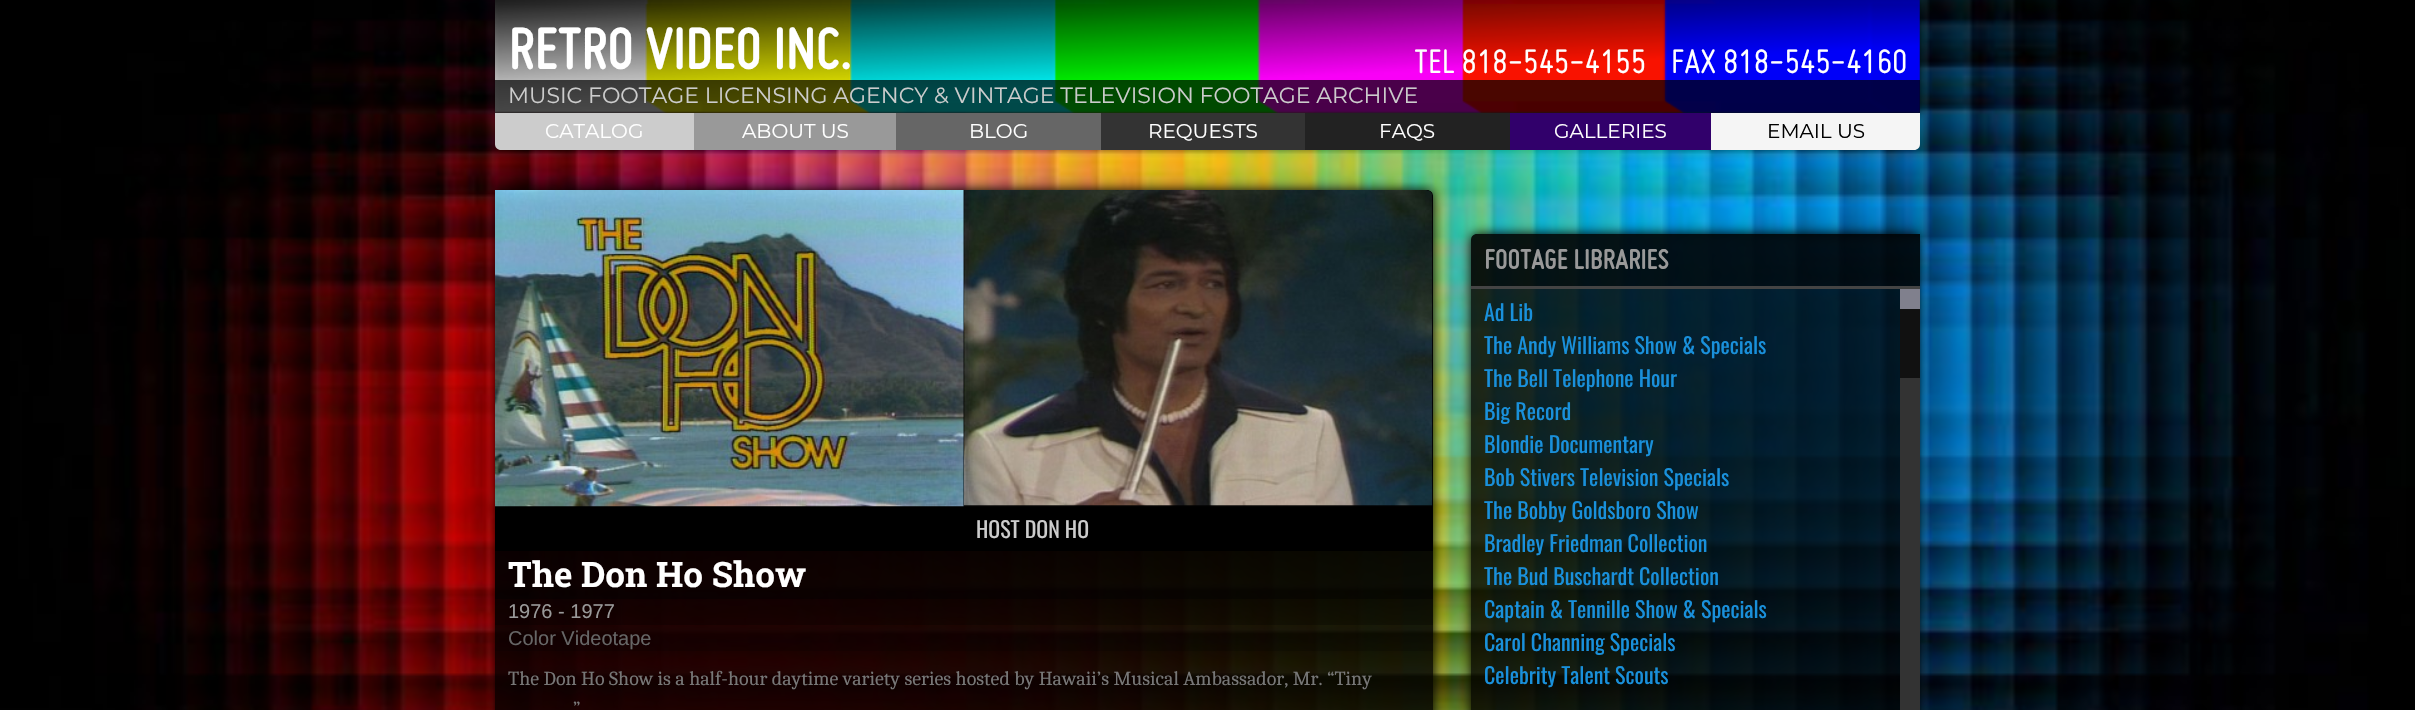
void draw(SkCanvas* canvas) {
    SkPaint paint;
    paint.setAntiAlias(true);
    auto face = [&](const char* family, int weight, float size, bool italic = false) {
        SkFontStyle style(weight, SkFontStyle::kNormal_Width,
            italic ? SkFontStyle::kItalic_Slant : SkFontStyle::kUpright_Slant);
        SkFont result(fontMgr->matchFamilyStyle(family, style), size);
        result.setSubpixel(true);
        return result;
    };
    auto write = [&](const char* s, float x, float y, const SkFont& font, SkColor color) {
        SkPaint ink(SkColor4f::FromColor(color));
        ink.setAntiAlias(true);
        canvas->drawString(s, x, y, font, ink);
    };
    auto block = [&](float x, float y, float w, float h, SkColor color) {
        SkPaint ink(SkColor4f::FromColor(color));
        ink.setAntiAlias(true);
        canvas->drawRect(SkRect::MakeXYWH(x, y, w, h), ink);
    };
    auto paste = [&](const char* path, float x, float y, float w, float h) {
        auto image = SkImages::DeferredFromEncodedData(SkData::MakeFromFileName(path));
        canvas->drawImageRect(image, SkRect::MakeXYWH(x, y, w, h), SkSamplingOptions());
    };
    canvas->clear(SK_ColorWHITE);
    paste("pic1.png", 0, 0, 2415, 710);
    paint.setColor(SK_ColorBLACK);
    paint.setMaskFilter(SkMaskFilter::MakeBlur(kNormal_SkBlurStyle, 6));
    canvas->drawRect(SkRect::MakeXYWH(495, 0, 1425, 113), paint);
    paint.setMaskFilter(nullptr);
    paste("pic2.png", 495, 0, 1425, 113);
    auto kFont1 = face("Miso", 700, 62.5f, true);
    write("RETRO VIDEO INC.", 508, 69, kFont1, SK_ColorWHITE);
    auto kFont2 = face("Miso", 400, 37, true);
    write("TEL 818-545-4155", 1414, 73, kFont2, SK_ColorWHITE);
    write("FAX 818-545-4160", 1671, 73, kFont2, SK_ColorWHITE);
    block(495, 80, 1425, 33, SkColorSetARGB(179, 0, 0, 0));
    auto kFont3 = face("Montserrat", 400, 22);
    write("MUSIC FOOTAGE LICENSING AGENCY & VINTAGE TELEVISION FOOTAGE ARCHIVE", 508, 103, kFont3, SkColorSetRGB(204, 204, 204));
    paint.setColor(SkColorSetRGB(204, 204, 204));
    canvas->drawPath(SkPathBuilder().moveTo(495, 113).lineTo(694, 113).lineTo(694, 150).lineTo(501, 150).cubicTo(497.5f, 150, 495, 147.5f, 495, 144).close().detach(), paint);
    auto kFont4 = face("Montserrat", 400, 20);
    write("CATALOG", 545, 138, kFont4, SK_ColorWHITE);
    block(694, 113, 202, 37, SkColorSetRGB(153, 153, 153));
    write("ABOUT US", 742, 138, kFont4, SK_ColorWHITE);
    block(896, 113, 205, 37, SkColorSetRGB(102, 102, 102));
    write("BLOG", 969, 138, kFont4, SK_ColorWHITE);
    block(1101, 113, 204, 37, SkColorSetRGB(51, 51, 51));
    write("REQUESTS", 1148, 138, kFont4, SK_ColorWHITE);
    block(1305, 113, 205, 37, SkColorSetRGB(34, 34, 34));
    write("FAQS", 1379, 138, kFont4, SK_ColorWHITE);
    block(1510, 113, 201, 37, SkColorSetRGB(49, 0, 107));
    write("GALLERIES", 1554, 138, kFont4, SK_ColorWHITE);
    paint.setColor(SkColorSetRGB(245, 245, 245));
    canvas->drawPath(SkPathBuilder().moveTo(1711, 113).lineTo(1920, 113).lineTo(1920, 144).cubicTo(1920, 147.5f, 1917.5f, 150, 1914, 150).lineTo(1711, 150).close().detach(), paint);
    write("EMAIL US", 1767, 138, kFont4, SK_ColorBLACK);
    canvas->save();
    canvas->clipPath(SkPathBuilder(SkPathFillType::kEvenOdd).moveTo(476, 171).lineTo(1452, 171).lineTo(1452, 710).lineTo(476, 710).close().moveTo(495, 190).lineTo(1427, 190).cubicTo(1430.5f, 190, 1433, 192.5f, 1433, 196).lineTo(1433, 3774).lineTo(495, 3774).close().detach(), true);
    paint.setColor(SK_ColorBLACK);
    paint.setMaskFilter(SkMaskFilter::MakeBlur(kNormal_SkBlurStyle, 6));
    canvas->drawRoundRect(SkRect::MakeXYWH(495, 190, 938, 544), 6, 6, paint);
    paint.setMaskFilter(nullptr);
    canvas->restore();
    block(495, 190, 469, 361, SK_ColorBLACK);
    paste("pic3.png", 495, 190, 469, 317);
    canvas->drawPath(SkPathBuilder().moveTo(964, 190).lineTo(1427, 190).cubicTo(1430.5f, 190, 1433, 192.5f, 1433, 196).lineTo(1433, 551).lineTo(964, 551).close().detach(), paint);
    paste("pic4.png", 964, 190, 469, 317);
    block(964, 505, 469, 2, SkColorSetARGB(179, 0, 0, 0));
    auto kFont5 = face("Oswald", 400, 22);
    write("HOST DON HO", 976, 538, kFont5, SkColorSetRGB(204, 204, 204));
    block(495, 551, 938, 159, SkColorSetARGB(204, 0, 0, 0));
    block(495, 551, 938, 48, SkColorSetARGB(179, 0, 0, 0));
    auto kFont6 = face("Roboto Slab", 700, 35);
    write("The Don Ho Show", 508, 587, kFont6, SK_ColorWHITE);
    block(495, 599, 938, 26, SkColorSetARGB(128, 0, 0, 0));
    auto kFont7 = face("Liberation Sans", 400, 20);
    write("1976 - 1977", 508, 618, kFont7, SkColorSetRGB(153, 153, 153));
    block(495, 625, 938, 26, SkColorSetARGB(77, 0, 0, 0));
    write("Color Videotape", 508, 645, kFont7, SkColorSetRGB(102, 102, 102));
    block(495, 651, 938, 59, SkColorSetARGB(38, 0, 0, 0));
    auto kFont8 = face("Caladea", 400, 20);
    write("The Don Ho Show is a half-hour daytime variety series hosted by Hawaii’s Musical Ambassador, Mr. “Tiny", 508, 685, kFont8, SkColorSetRGB(119, 119, 119));
    write("”", 573, 715, kFont8, SkColorSetRGB(119, 119, 119));
    canvas->save();
    canvas->clipPath(SkPathBuilder(SkPathFillType::kEvenOdd).moveTo(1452, 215).lineTo(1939, 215).lineTo(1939, 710).lineTo(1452, 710).close().moveTo(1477, 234).lineTo(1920, 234).lineTo(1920, 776).lineTo(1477, 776).cubicTo(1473.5f, 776, 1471, 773.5f, 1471, 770).lineTo(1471, 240).cubicTo(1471, 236.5f, 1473.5f, 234, 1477, 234).close().detach(), true);
    paint.setMaskFilter(SkMaskFilter::MakeBlur(kNormal_SkBlurStyle, 6));
    canvas->drawRoundRect(SkRect::MakeXYWH(1471, 234, 449, 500), 6, 6, paint);
    paint.setMaskFilter(nullptr);
    canvas->restore();
    paint.setColor(SkColorSetARGB(204, 0, 0, 0));
    canvas->drawPath(SkPathBuilder().moveTo(1477, 234).lineTo(1920, 234).lineTo(1920, 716).lineTo(1477, 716).cubicTo(1473.5f, 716, 1471, 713.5f, 1471, 710).lineTo(1471, 240).cubicTo(1471, 236.5f, 1473.5f, 234, 1477, 234).close().detach(), paint);
    paint.setColor(SkColorSetARGB(128, 0, 0, 0));
    canvas->drawPath(SkPathBuilder().moveTo(1477, 234).lineTo(1920, 234).lineTo(1920, 289).lineTo(1471, 289).lineTo(1471, 240).cubicTo(1471, 236.5f, 1473.5f, 234, 1477, 234).close().detach(), paint);
    block(1471, 286, 449, 3, SkColorSetRGB(68, 68, 68));
    auto kFont9 = face("Miso", 700, 30, true);
    write("FOOTAGE LIBRARIES", 1484, 269, kFont9, SkColorSetRGB(153, 153, 153));
    write("Ad Lib", 1484, 321, kFont5, SkColorSetRGB(25, 144, 219));
    write("The Andy Williams Show & Specials", 1484, 354, kFont5, SkColorSetRGB(25, 144, 219));
    write("The Bell Telephone Hour", 1484, 387, kFont5, SkColorSetRGB(25, 144, 219));
    write("Big Record", 1484, 420, kFont5, SkColorSetRGB(25, 144, 219));
    write("Blondie Documentary", 1484, 453, kFont5, SkColorSetRGB(25, 144, 219));
    write("Bob Stivers Television Specials", 1484, 486, kFont5, SkColorSetRGB(25, 144, 219));
    write("The Bobby Goldsboro Show", 1484, 519, kFont5, SkColorSetRGB(25, 144, 219));
    write("Bradley Friedman Collection", 1484, 552, kFont5, SkColorSetRGB(25, 144, 219));
    write("The Bud Buschardt Collection", 1484, 585, kFont5, SkColorSetRGB(25, 144, 219));
    write("Captain & Tennille Show & Specials", 1484, 618, kFont5, SkColorSetRGB(25, 144, 219));
    write("Carol Channing Specials", 1484, 651, kFont5, SkColorSetRGB(25, 144, 219));
    write("Celebrity Talent Scouts", 1484, 684, kFont5, SkColorSetRGB(25, 144, 219));
    block(1900, 289, 20, 20, SkColorSetRGB(128, 128, 141));
    block(1900, 378, 20, 332, SkColorSetRGB(51, 51, 51));
    block(1900, 309, 20, 69, SkColorSetRGB(17, 17, 17));
}
